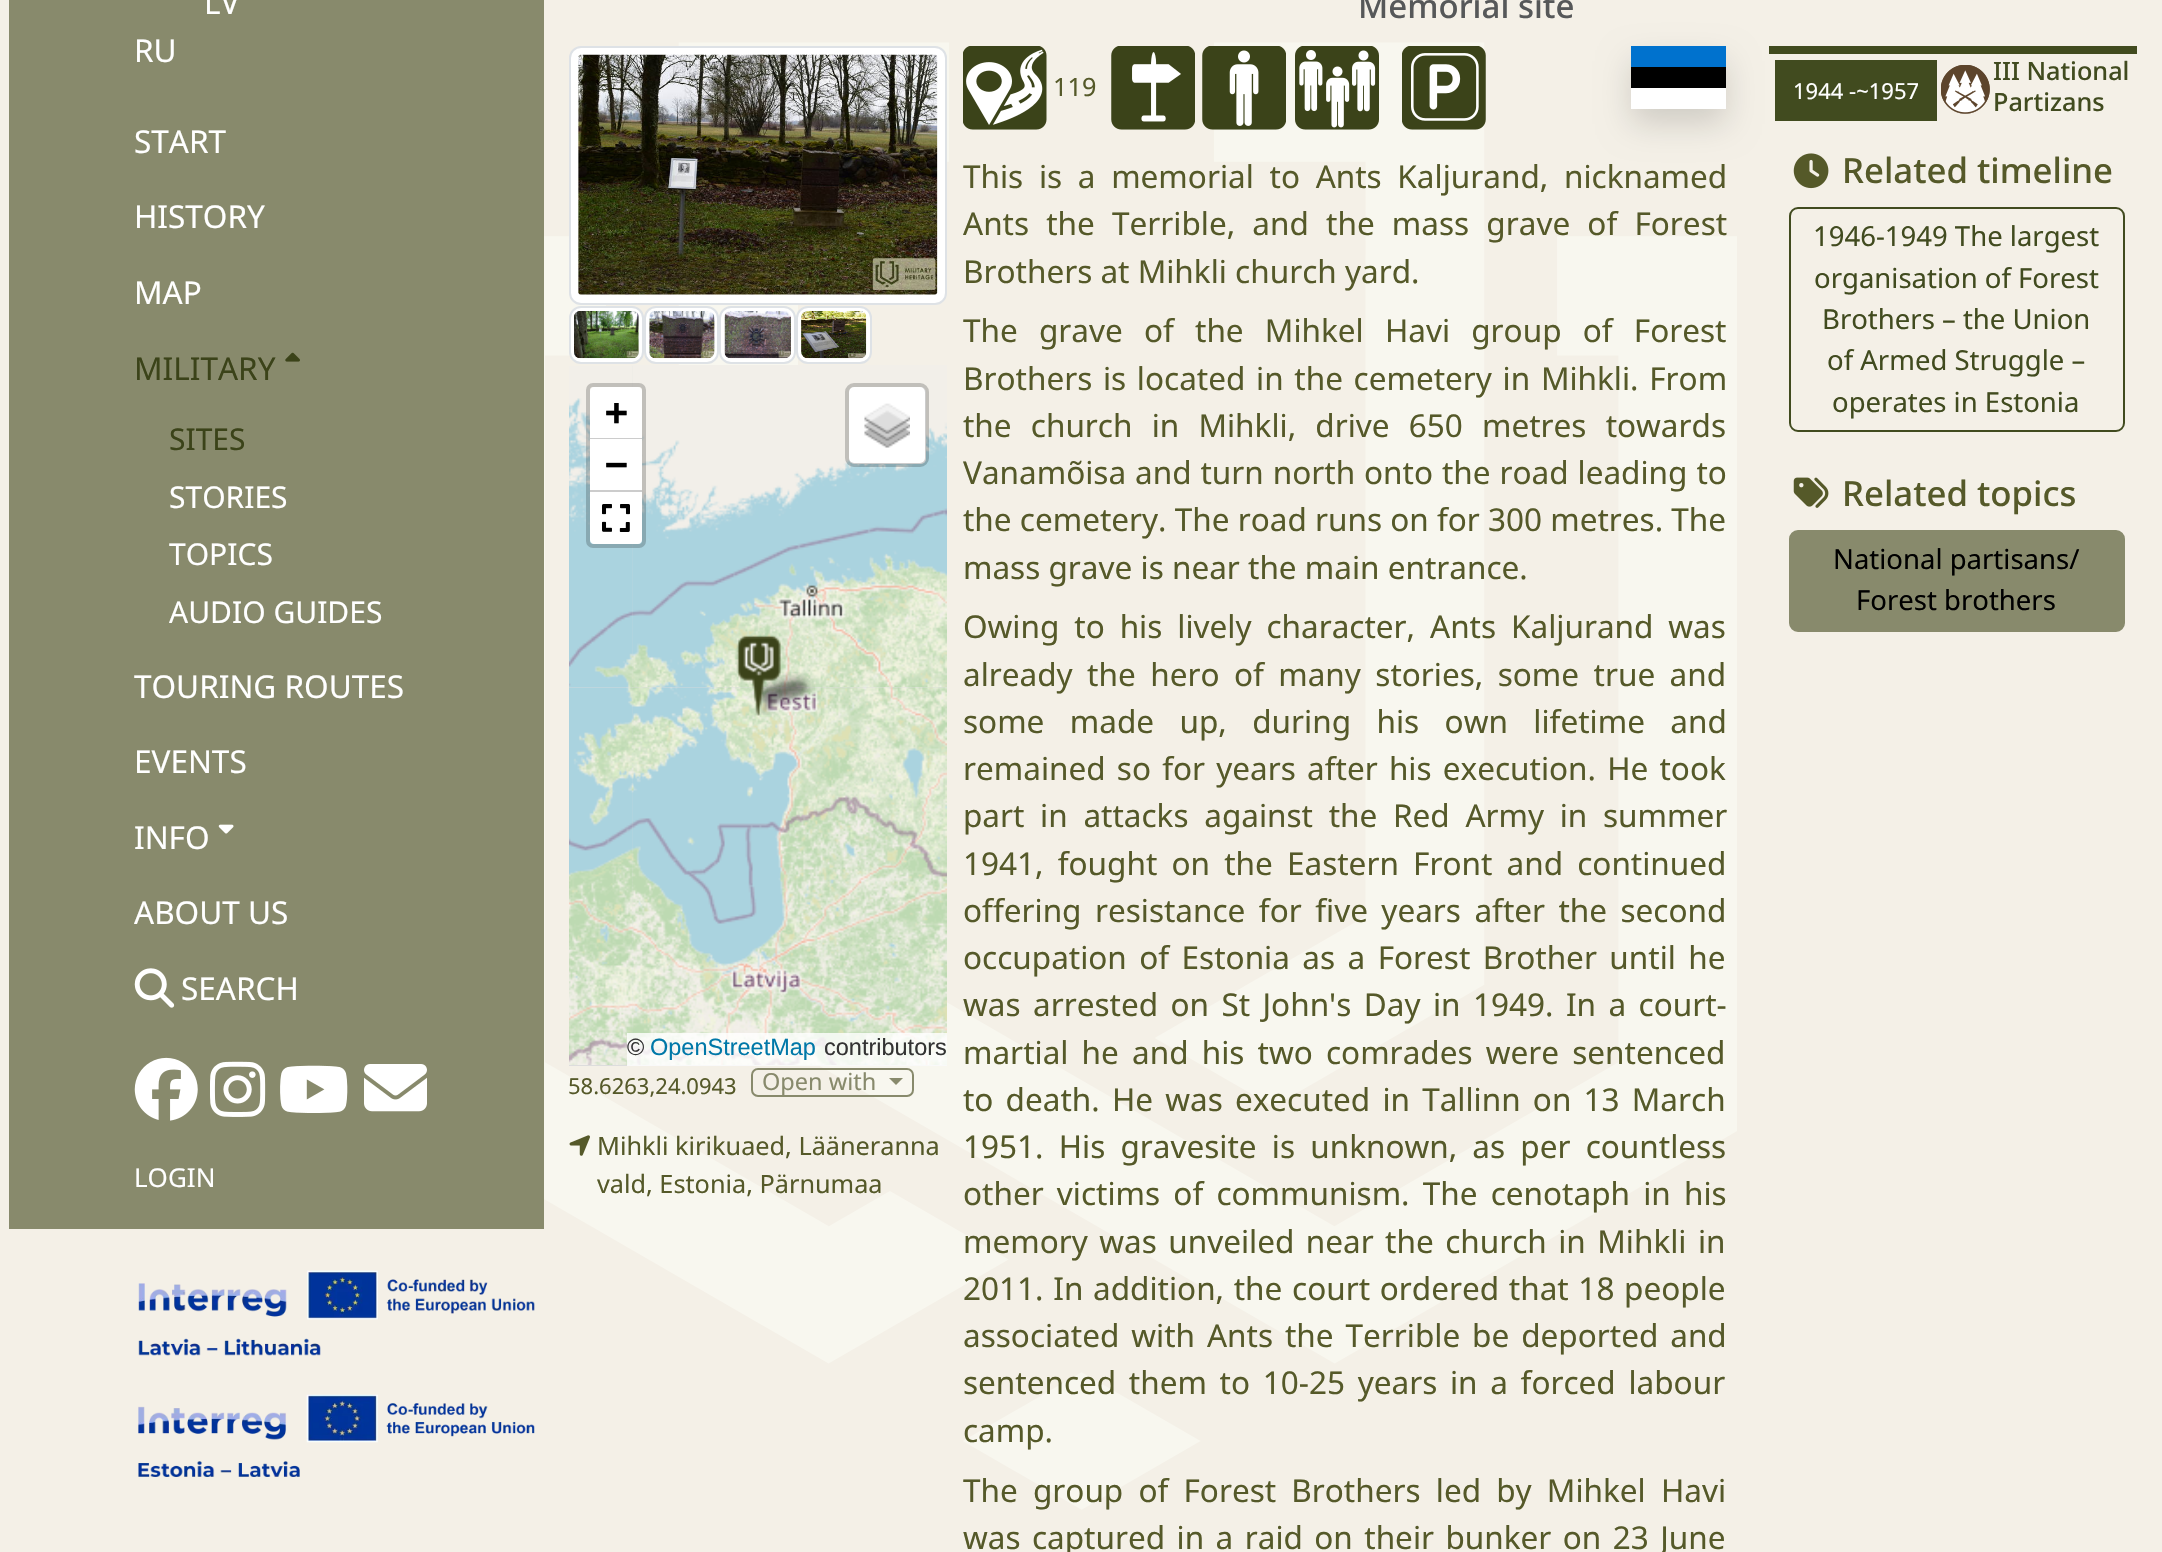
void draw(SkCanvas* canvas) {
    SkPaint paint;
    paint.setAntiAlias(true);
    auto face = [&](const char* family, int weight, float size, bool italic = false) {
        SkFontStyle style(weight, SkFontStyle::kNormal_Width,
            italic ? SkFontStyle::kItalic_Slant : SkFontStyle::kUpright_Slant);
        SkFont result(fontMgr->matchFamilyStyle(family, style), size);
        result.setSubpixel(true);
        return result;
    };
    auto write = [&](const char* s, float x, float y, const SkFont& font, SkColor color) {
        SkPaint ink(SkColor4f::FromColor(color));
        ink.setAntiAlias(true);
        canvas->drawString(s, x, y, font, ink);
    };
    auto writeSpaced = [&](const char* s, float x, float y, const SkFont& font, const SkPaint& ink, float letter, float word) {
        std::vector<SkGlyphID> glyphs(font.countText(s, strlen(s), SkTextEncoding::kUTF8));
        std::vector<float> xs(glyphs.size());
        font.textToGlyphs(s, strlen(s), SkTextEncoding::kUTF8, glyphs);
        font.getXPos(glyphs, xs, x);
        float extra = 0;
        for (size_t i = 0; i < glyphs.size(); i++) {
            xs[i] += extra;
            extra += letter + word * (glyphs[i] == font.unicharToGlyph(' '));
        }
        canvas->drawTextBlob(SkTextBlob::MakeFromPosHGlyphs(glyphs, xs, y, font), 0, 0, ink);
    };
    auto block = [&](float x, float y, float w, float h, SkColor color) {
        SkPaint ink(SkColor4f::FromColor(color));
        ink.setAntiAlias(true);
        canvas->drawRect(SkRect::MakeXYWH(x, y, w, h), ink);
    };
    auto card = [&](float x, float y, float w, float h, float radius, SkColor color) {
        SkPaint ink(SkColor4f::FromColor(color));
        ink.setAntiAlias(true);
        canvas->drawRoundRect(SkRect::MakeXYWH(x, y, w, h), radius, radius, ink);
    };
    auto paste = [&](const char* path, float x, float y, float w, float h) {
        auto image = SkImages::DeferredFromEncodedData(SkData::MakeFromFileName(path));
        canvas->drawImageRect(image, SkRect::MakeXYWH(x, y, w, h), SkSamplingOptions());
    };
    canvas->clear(SkColorSetRGB(244, 240, 231));
    paste("pic1.png", 544, 42, 1193, 1468);
    block(9, 0, 535, 1229, SkColorSetRGB(136, 138, 108));
    auto kFont1 = face("Noto Sans", 400, 31.5f);
    write("LV", 204, 14, kFont1, SK_ColorWHITE);
    write("RU", 134, 62, kFont1, SK_ColorWHITE);
    write("START", 134, 153, kFont1, SK_ColorWHITE);
    write("HISTORY", 134, 228, kFont1, SK_ColorWHITE);
    write("MAP", 134, 304, kFont1, SK_ColorWHITE);
    write("MILITARY", 134, 380, kFont1, SkColorSetRGB(59, 67, 25));
    paste("pic2.png", 285, 352, 15, 10);
    auto kFont2 = face("Noto Sans", 400, 30);
    write("SITES", 169, 450, kFont2, SkColorSetRGB(59, 67, 25));
    write("STORIES", 169, 508, kFont2, SK_ColorWHITE);
    write("TOPICS", 169, 565, kFont2, SK_ColorWHITE);
    write("AUDIO GUIDES", 169, 623, kFont2, SK_ColorWHITE);
    write("TOURING ROUTES", 134, 698, kFont1, SK_ColorWHITE);
    write("EVENTS", 134, 773, kFont1, SK_ColorWHITE);
    write("INFO", 134, 849, kFont1, SK_ColorWHITE);
    paste("pic3.png", 218, 824, 16, 10);
    write("ABOUT US", 134, 924, kFont1, SK_ColorWHITE);
    paste("pic4.png", 134, 968, 41, 40);
    write("SEARCH", 181, 1000, kFont1, SK_ColorWHITE);
    paste("pic5.png", 134, 1057, 64, 64);
    paste("pic6.png", 210, 1061, 56, 56);
    paste("pic7.png", 280, 1065, 68, 48);
    paste("pic8.png", 364, 1064, 63, 48);
    auto kFont3 = face("Noto Sans", 400, 26);
    write("LOGIN", 134, 1187, kFont3, SK_ColorWHITE);
    paste("pic9.png", 138, 1270, 397, 86);
    paste("pic10.png", 138, 1394, 397, 83);
    auto kFont4 = face("Noto Sans", 500, 33);
    write("Memorial site", 1358, 18, kFont4, SkColorSetRGB(86, 88, 89));
    paint.setColor(SK_ColorWHITE);
    canvas->drawRoundRect(SkRect::MakeXYWH(570, 47, 376, 257), 11, 11, paint);
    paint.setStyle(SkPaint::kStroke_Style);
    paint.setStrokeWidth(2);
    paint.setColor(SkColorSetRGB(222, 226, 230));
    canvas->drawRoundRect(SkRect::MakeXYWH(570, 47, 376, 257), 11, 11, paint);
    paste("pic11.png", 578, 54, 360, 241);
    paint.setStyle(SkPaint::kFill_Style);
    paint.setColor(SK_ColorWHITE);
    canvas->drawRoundRect(SkRect::MakeXYWH(570, 307, 73, 56), 11, 11, paint);
    paint.setStyle(SkPaint::kStroke_Style);
    paint.setColor(SkColorSetRGB(222, 226, 230));
    canvas->drawRoundRect(SkRect::MakeXYWH(570, 307, 73, 56), 11, 11, paint);
    paste("pic12.png", 574, 311, 65, 48);
    paint.setStyle(SkPaint::kFill_Style);
    paint.setColor(SK_ColorWHITE);
    canvas->drawRoundRect(SkRect::MakeXYWH(645, 307, 73, 56), 11, 11, paint);
    paint.setStyle(SkPaint::kStroke_Style);
    paint.setColor(SkColorSetRGB(222, 226, 230));
    canvas->drawRoundRect(SkRect::MakeXYWH(645, 307, 73, 56), 11, 11, paint);
    paste("pic13.png", 649, 311, 66, 48);
    paint.setStyle(SkPaint::kFill_Style);
    paint.setColor(SK_ColorWHITE);
    canvas->drawRoundRect(SkRect::MakeXYWH(720, 307, 75, 56), 11, 11, paint);
    paint.setStyle(SkPaint::kStroke_Style);
    paint.setColor(SkColorSetRGB(222, 226, 230));
    canvas->drawRoundRect(SkRect::MakeXYWH(720, 307, 75, 56), 11, 11, paint);
    paste("pic14.png", 724, 311, 67, 48);
    paint.setStyle(SkPaint::kFill_Style);
    paint.setColor(SK_ColorWHITE);
    canvas->drawRoundRect(SkRect::MakeXYWH(797, 307, 74, 56), 11, 11, paint);
    paint.setStyle(SkPaint::kStroke_Style);
    paint.setColor(SkColorSetRGB(222, 226, 230));
    canvas->drawRoundRect(SkRect::MakeXYWH(797, 307, 74, 56), 11, 11, paint);
    paste("pic15.png", 801, 311, 66, 48);
    block(569, 366, 378, 700, SkColorSetRGB(221, 221, 221));
    paste("pic16.png", 569, 366, 63, 321);
    paste("pic17.png", 631, 365, 316, 322);
    paste("pic18.png", 569, 687, 63, 378);
    paste("pic19.png", 631, 687, 316, 378);
    paste("pic21.png", 753, 672, 62, 43);
    paste("pic20.png", 736, 635, 45, 81);
    paint.setStrokeWidth(4);
    paint.setColor(SkColorSetARGB(51, 0, 0, 0));
    canvas->drawRoundRect(SkRect::MakeXYWH(588, 385, 56, 161), 5, 5, paint);
    paint.setStyle(SkPaint::kFill_Style);
    paint.setColor(SK_ColorWHITE);
    canvas->drawPath(SkPathBuilder().moveTo(594, 387).lineTo(638, 387).cubicTo(640, 387, 642, 389, 642, 391).lineTo(642, 439).lineTo(590, 439).lineTo(590, 391).cubicTo(590, 389, 592, 387, 594, 387).close().detach(), paint);
    block(590, 438, 52, 1, SkColorSetRGB(204, 204, 204));
    auto kFont5 = face("DejaVu Sans Mono", 700, 38);
    write("+", 605, 425, kFont5, SK_ColorBLACK);
    block(590, 439, 52, 51, SK_ColorWHITE);
    block(590, 490, 52, 2, SkColorSetRGB(204, 204, 204));
    write("−", 605, 477, kFont5, SK_ColorBLACK);
    canvas->drawPath(SkPathBuilder().moveTo(590, 492).lineTo(642, 492).lineTo(642, 540).cubicTo(642, 542, 640, 544, 638, 544).lineTo(594, 544).cubicTo(592, 544, 590, 542, 590, 540).close().detach(), paint);
    paste("pic22.png", 602, 504, 28, 28);
    card(849, 387, 77, 77, 5, SK_ColorWHITE);
    paint.setStyle(SkPaint::kStroke_Style);
    paint.setColor(SkColorSetARGB(51, 0, 0, 0));
    canvas->drawRoundRect(SkRect::MakeXYWH(847, 385, 80, 80), 7, 7, paint);
    paste("pic23.png", 864, 403, 46, 45);
    block(627, 1033, 320, 33, SkColorSetARGB(204, 255, 255, 255));
    auto kFont6 = face("Liberation Sans", 400, 23.5f);
    write("©", 627, 1055, kFont6, SkColorSetRGB(51, 51, 51));
    write("OpenStreetMap", 650, 1055, kFont6, SkColorSetRGB(0, 120, 168));
    write("contributors", 824, 1055, kFont6, SkColorSetRGB(51, 51, 51));
    auto kFont7 = face("Noto Sans", 400, 22);
    write("58.6263,24.0943", 568, 1094, kFont7, SkColorSetRGB(85, 89, 41));
    paint.setStrokeWidth(2);
    paint.setColor(SkColorSetRGB(136, 138, 108));
    canvas->drawRoundRect(SkRect::MakeXYWH(752, 1069, 161, 27), 6, 6, paint);
    auto kFont8 = face("Noto Sans", 400, 23.5f);
    write("Open with", 762, 1090, kFont8, SkColorSetRGB(136, 138, 108));
    paint.setStyle(SkPaint::kFill_Style);
    canvas->drawPath(SkPathBuilder().moveTo(889, 1078).lineTo(903, 1078).lineTo(896, 1085).close().detach(), paint);
    paste("pic24.png", 569, 1135, 21, 21);
    auto kFont9 = face("Noto Sans", 400, 25.25f);
    write("Mihkli kirikuaed, Lääneranna", 597, 1155, kFont9, SkColorSetRGB(85, 89, 41));
    write("vald, Estonia, Pärnumaa", 597, 1193, kFont9, SkColorSetRGB(85, 89, 41));
    paste("pic25.png", 963, 46, 84, 84);
    write("119", 1053, 96, kFont9, SkColorSetRGB(85, 89, 41));
    paste("pic26.png", 1111, 46, 84, 84);
    paste("pic27.png", 1202, 46, 84, 84);
    paste("pic28.png", 1295, 46, 84, 84);
    paste("pic29.png", 1402, 46, 84, 84);
    paint.setColor(SkColorSetARGB(38, 0, 0, 0));
    paint.setMaskFilter(SkMaskFilter::MakeBlur(kNormal_SkBlurStyle, 16));
    canvas->drawRect(SkRect::MakeXYWH(1631, 61, 95, 63), paint);
    paint.setMaskFilter(nullptr);
    block(1631, 88, 95, 21, SK_ColorWHITE);
    block(1631, 67, 95, 21, SK_ColorBLACK);
    block(1631, 46, 95, 21, SkColorSetRGB(0, 114, 206));
    paint.setColor(SkColorSetRGB(85, 89, 41));
    writeSpaced("This is a memorial to Ants Kaljurand, nicknamed", 963, 188, kFont1, paint, 0, 7.5f);
    writeSpaced("Ants the Terrible, and the mass grave of Forest", 963, 235, kFont1, paint, 0, 9);
    write("Brothers at Mihkli church yard.", 963, 283, kFont1, SkColorSetRGB(85, 89, 41));
    writeSpaced("The grave of the Mihkel Havi group of Forest", 963, 342, kFont1, paint, 0, 13);
    writeSpaced("Brothers is located in the cemetery in Mihkli. From", 963, 390, kFont1, paint, 0, 2.5f);
    writeSpaced("the church in Mihkli, drive 650 metres towards", 963, 437, kFont1, paint, 0, 11);
    writeSpaced("Vanamõisa and turn north onto the road leading to", 963, 484, kFont1, paint, 0, 0.75f);
    write("the cemetery. The road runs on for 300 metres. The", 963, 531, kFont1, SkColorSetRGB(85, 89, 41));
    write("mass grave is near the main entrance.", 963, 579, kFont1, SkColorSetRGB(85, 89, 41));
    writeSpaced("Owing to his lively character, Ants Kaljurand was", 963, 638, kFont1, paint, 0, 6.75f);
    writeSpaced("already the hero of many stories, some true and", 963, 686, kFont1, paint, 0, 6.25f);
    writeSpaced("some made up, during his own lifetime and", 963, 733, kFont1, paint, 0, 17.25f);
    writeSpaced("remained so for years after his execution. He took", 963, 780, kFont1, paint, 0, 3);
    writeSpaced("part in attacks against the Red Army in summer", 963, 827, kFont1, paint, 0, 7.5f);
    writeSpaced("1941, fought on the Eastern Front and continued", 963, 875, kFont1, paint, 0, 6);
    writeSpaced("offering resistance for five years after the second", 963, 922, kFont1, paint, 0, 5.25f);
    writeSpaced("occupation of Estonia as a Forest Brother until he", 963, 969, kFont1, paint, 0, 4.25f);
    writeSpaced("was arrested on St John's Day in 1949. In a court-", 963, 1016, kFont1, paint, 0, 4.25f);
    writeSpaced("martial he and his two comrades were sentenced", 963, 1064, kFont1, paint, 0, 5);
    writeSpaced("to death. He was executed in Tallinn on 13 March", 963, 1111, kFont1, paint, 0, 4);
    writeSpaced("1951. His gravesite is unknown, as per countless", 963, 1158, kFont1, paint, 0, 7);
    writeSpaced("other victims of communism. The cenotaph in his", 963, 1205, kFont1, paint, 0, 5);
    writeSpaced("memory was unveiled near the church in Mihkli in", 963, 1253, kFont1, paint, 0, 3.25f);
    writeSpaced("2011. In addition, the court ordered that 18 people", 963, 1300, kFont1, paint, 0, 1.5f);
    writeSpaced("associated with Ants the Terrible be deported and", 963, 1347, kFont1, paint, 0, 3.75f);
    writeSpaced("sentenced them to 10-25 years in a forced labour", 963, 1394, kFont1, paint, 0, 4.5f);
    write("camp.", 963, 1442, kFont1, SkColorSetRGB(85, 89, 41));
    writeSpaced("The group of Forest Brothers led by Mihkel Havi", 963, 1502, kFont1, paint, 0, 7);
    writeSpaced("was captured in a raid on their bunker on 23 June", 963, 1549, kFont1, paint, 0, 3.25f);
    block(1769, 46, 368, 8, SkColorSetRGB(65, 75, 31));
    block(1775, 60, 162, 61, SkColorSetRGB(65, 75, 31));
    write("1944 -~1957", 1793, 99, kFont7, SK_ColorWHITE);
    paste("pic30.png", 1941, 65, 49, 49);
    auto kFont10 = face("Noto Sans", 500, 25.25f);
    write("III National", 1993, 80, kFont10, SkColorSetRGB(65, 75, 31));
    write("Partizans", 1993, 111, kFont10, SkColorSetRGB(65, 75, 31));
    paste("pic31.png", 1793, 153, 36, 36);
    auto kFont11 = face("Noto Sans", 500, 34.75f);
    write("Related timeline", 1842, 183, kFont11, SkColorSetRGB(85, 89, 41));
    paint.setStyle(SkPaint::kStroke_Style);
    paint.setColor(SkColorSetRGB(65, 75, 31));
    canvas->drawRoundRect(SkRect::MakeXYWH(1790, 208, 334, 223), 8, 8, paint);
    auto kFont12 = face("Noto Sans", 400, 27.5f);
    write("1946-1949 The largest", 1813, 246, kFont12, SkColorSetRGB(65, 75, 31));
    write("organisation of Forest", 1814, 288, kFont12, SkColorSetRGB(65, 75, 31));
    write("Brothers – the Union", 1822, 329, kFont12, SkColorSetRGB(65, 75, 31));
    write("of Armed Struggle –", 1827, 370, kFont12, SkColorSetRGB(65, 75, 31));
    write("operates in Estonia", 1832, 412, kFont12, SkColorSetRGB(65, 75, 31));
    paste("pic32.png", 1793, 477, 36, 31);
    write("Related topics", 1842, 506, kFont11, SkColorSetRGB(85, 89, 41));
    paint.setStyle(SkPaint::kFill_Style);
    paint.setColor(SkColorSetRGB(136, 138, 108));
    canvas->drawRoundRect(SkRect::MakeXYWH(1790, 531, 334, 100), 8, 8, paint);
    paint.setStyle(SkPaint::kStroke_Style);
    canvas->drawRoundRect(SkRect::MakeXYWH(1790, 531, 334, 100), 8, 8, paint);
    write("National partisans/", 1833, 569, kFont12, SK_ColorBLACK);
    write("Forest brothers", 1856, 610, kFont12, SK_ColorBLACK);
}
